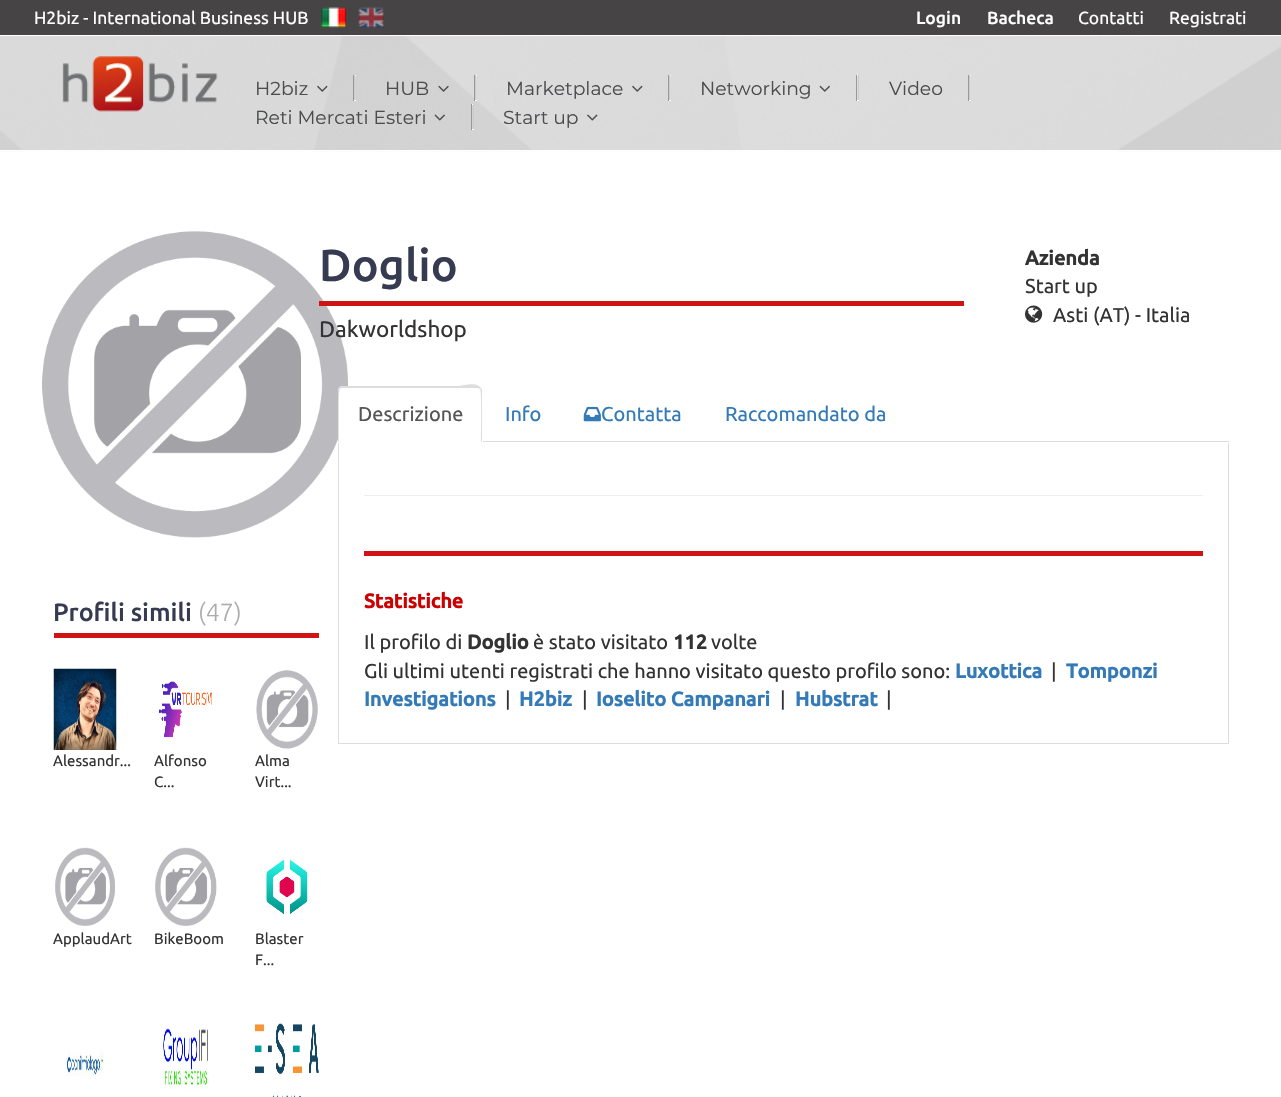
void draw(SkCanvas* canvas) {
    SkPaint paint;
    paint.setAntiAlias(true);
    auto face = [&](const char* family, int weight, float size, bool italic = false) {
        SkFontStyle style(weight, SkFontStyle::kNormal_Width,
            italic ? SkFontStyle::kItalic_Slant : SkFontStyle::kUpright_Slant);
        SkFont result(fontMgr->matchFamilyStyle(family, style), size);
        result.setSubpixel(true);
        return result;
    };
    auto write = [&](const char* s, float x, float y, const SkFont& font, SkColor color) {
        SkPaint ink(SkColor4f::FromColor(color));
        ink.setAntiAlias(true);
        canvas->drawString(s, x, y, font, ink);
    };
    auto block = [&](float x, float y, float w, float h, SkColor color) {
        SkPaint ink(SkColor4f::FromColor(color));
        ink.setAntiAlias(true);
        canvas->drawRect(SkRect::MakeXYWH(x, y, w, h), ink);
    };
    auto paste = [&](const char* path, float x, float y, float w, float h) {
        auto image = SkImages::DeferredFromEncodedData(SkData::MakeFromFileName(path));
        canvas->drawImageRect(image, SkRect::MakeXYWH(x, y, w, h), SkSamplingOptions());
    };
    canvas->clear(SK_ColorWHITE);
    block(0, 0, 1281, 35, SkColorSetRGB(70, 68, 68));
    auto kFont1 = face("Ubuntu", 400, 17.5f);
    write("H2biz - International Business HUB", 34, 24, kFont1, SK_ColorWHITE);
    paste("pic1.png", 321, 7, 26, 21);
    paste("pic2.png", 358, 7, 26, 21);
    auto kFont2 = face("Ubuntu", 500, 17.5f);
    write("Login", 916, 24, kFont2, SK_ColorWHITE);
    write("Bacheca", 987, 24, kFont2, SK_ColorWHITE);
    write("Contatti", 1078, 24, kFont1, SK_ColorWHITE);
    write("Registrati", 1169, 24, kFont1, SK_ColorWHITE);
    block(0, 36, 1281, 114, SkColorSetRGB(221, 221, 221));
    paste("pic3.png", 0, 36, 1281, 116);
    block(0, 150, 1281, 1, SK_ColorWHITE);
    paste("pic4.png", 62, 56, 156, 56);
    block(353, 75, 3, 1, SK_ColorWHITE);
    auto kFont3 = face("Montserrat", 400, 18.75f);
    write("H2biz", 255, 95, kFont3, SkColorSetRGB(75, 76, 78));
    paste("pic5.png", 317, 85, 11, 7);
    block(354, 75, 1, 26, SkColorSetRGB(204, 204, 204));
    block(353, 100, 3, 1, SK_ColorWHITE);
    block(353, 75, 1, 26, SkColorSetRGB(153, 153, 153));
    block(474, 75, 3, 1, SK_ColorWHITE);
    write("HUB", 385, 95, kFont3, SkColorSetRGB(75, 76, 78));
    paste("pic6.png", 438, 85, 11, 7);
    block(475, 75, 1, 26, SkColorSetRGB(204, 204, 204));
    block(474, 100, 3, 1, SK_ColorWHITE);
    block(474, 75, 1, 26, SkColorSetRGB(153, 153, 153));
    block(668, 75, 3, 1, SK_ColorWHITE);
    write("Marketplace", 506, 95, kFont3, SkColorSetRGB(75, 76, 78));
    paste("pic7.png", 632, 85, 11, 7);
    block(669, 75, 1, 26, SkColorSetRGB(204, 204, 204));
    block(668, 100, 3, 1, SK_ColorWHITE);
    block(668, 75, 1, 26, SkColorSetRGB(153, 153, 153));
    block(856, 75, 3, 1, SK_ColorWHITE);
    write("Networking", 700, 95, kFont3, SkColorSetRGB(75, 76, 78));
    paste("pic8.png", 819, 85, 11, 7);
    block(858, 75, 1, 26, SkColorSetRGB(204, 204, 204));
    block(856, 100, 3, 1, SK_ColorWHITE);
    block(856, 75, 1, 26, SkColorSetRGB(153, 153, 153));
    block(968, 75, 3, 1, SK_ColorWHITE);
    write("Video", 889, 95, kFont3, SkColorSetRGB(75, 76, 78));
    block(969, 75, 1, 26, SkColorSetRGB(204, 204, 204));
    block(968, 100, 3, 1, SK_ColorWHITE);
    block(968, 75, 1, 26, SkColorSetRGB(153, 153, 153));
    block(471, 104, 3, 1, SK_ColorWHITE);
    write("Reti Mercati Esteri", 255, 124, kFont3, SkColorSetRGB(75, 76, 78));
    paste("pic9.png", 434, 114, 11, 7);
    block(473, 104, 1, 26, SkColorSetRGB(204, 204, 204));
    block(471, 129, 3, 1, SK_ColorWHITE);
    block(471, 104, 1, 26, SkColorSetRGB(153, 153, 153));
    write("Start up", 503, 124, kFont3, SkColorSetRGB(75, 76, 78));
    paste("pic10.png", 587, 114, 11, 7);
    paste("pic11.png", 42, 231, 306, 307);
    block(319, 301, 645, 5, SkColorSetRGB(208, 20, 20));
    auto kFont4 = face("Ubuntu", 500, 45);
    write("Doglio", 319, 281, kFont4, SkColorSetRGB(54, 59, 81));
    auto kFont5 = face("Ubuntu", 400, 22.5f);
    write("Dakworldshop", 319, 337, kFont5, SkColorSetRGB(51, 51, 51));
    auto kFont6 = face("Ubuntu", 700, 20);
    write("Azienda", 1025, 265, kFont6, SkColorSetRGB(51, 51, 51));
    auto kFont7 = face("Ubuntu", 400, 20);
    write("Start up", 1025, 293, kFont7, SkColorSetRGB(51, 51, 51));
    paste("pic12.png", 1025, 305, 18, 18);
    write("Asti (AT) - Italia", 1053, 322, kFont7, SkColorSetRGB(51, 51, 51));
    block(483, 441, 746, 1, SkColorSetRGB(221, 221, 221));
    paint.setColor(SK_ColorWHITE);
    canvas->drawPath(SkPathBuilder().moveTo(343, 386).lineTo(478, 386).cubicTo(481, 386, 483, 388, 483, 391).lineTo(483, 443).lineTo(338, 443).lineTo(338, 391).cubicTo(338, 388, 340, 386, 343, 386).close().detach(), paint);
    paint.setColor(SkColorSetRGB(221, 221, 221));
    canvas->drawPath(SkPathBuilder().moveTo(342, 388).lineTo(340, 389).lineTo(339, 388).lineTo(341, 386).lineTo(456, 386).cubicTo(465, 386, 476, 381, 481, 388).lineTo(480, 389).lineTo(478, 388).close().detach(), paint);
    canvas->drawPath(SkPathBuilder().moveTo(481, 388).cubicTo(482, 389, 482, 390, 482, 391).lineTo(482, 442).lineTo(481, 441).cubicTo(481, 435, 482, 390, 480, 389).close().detach(), paint);
    canvas->drawPath(SkPathBuilder().moveTo(338, 442).lineTo(339, 441).cubicTo(339, 435, 338, 390, 340, 389).lineTo(339, 388).cubicTo(338, 389, 338, 390, 338, 391).close().detach(), paint);
    write("Descrizione", 358, 421, kFont7, SkColorSetRGB(85, 85, 85));
    write("Info", 505, 421, kFont7, SkColorSetRGB(51, 122, 183));
    paste("pic13.png", 583, 406, 18, 16);
    write("Contatta", 601, 421, kFont7, SkColorSetRGB(51, 122, 183));
    write("Raccomandato da", 725, 421, kFont7, SkColorSetRGB(51, 122, 183));
    block(1228, 443, 1, 301, SkColorSetRGB(221, 221, 221));
    block(338, 743, 891, 1, SkColorSetRGB(221, 221, 221));
    block(338, 443, 1, 301, SkColorSetRGB(221, 221, 221));
    block(364, 495, 839, 1, SkColorSetRGB(238, 238, 238));
    block(364, 551, 839, 5, SkColorSetRGB(208, 20, 20));
    write("Statistiche", 364, 608, kFont6, SkColorSetRGB(204, 0, 0));
    write("Il profilo di", 364, 649, kFont7, SkColorSetRGB(51, 51, 51));
    write("Doglio", 467, 649, kFont6, SkColorSetRGB(51, 51, 51));
    write("è stato visitato", 533, 649, kFont7, SkColorSetRGB(51, 51, 51));
    write("112", 673, 649, kFont6, SkColorSetRGB(51, 51, 51));
    write("volte", 711, 649, kFont7, SkColorSetRGB(51, 51, 51));
    write("Gli ultimi utenti registrati che hanno visitato questo profilo sono:", 364, 678, kFont7, SkColorSetRGB(51, 51, 51));
    write("Luxottica", 955, 678, kFont6, SkColorSetRGB(51, 122, 183));
    write("|", 1051, 678, kFont7, SkColorSetRGB(51, 51, 51));
    write("Tomponzi", 1066, 678, kFont6, SkColorSetRGB(51, 122, 183));
    write("Investigations", 364, 706, kFont6, SkColorSetRGB(51, 122, 183));
    write("|", 505, 706, kFont7, SkColorSetRGB(51, 51, 51));
    write("H2biz", 519, 706, kFont6, SkColorSetRGB(51, 122, 183));
    write("|", 582, 706, kFont7, SkColorSetRGB(51, 51, 51));
    write("Ioselito Campanari", 596, 706, kFont6, SkColorSetRGB(51, 122, 183));
    write("|", 780, 706, kFont7, SkColorSetRGB(51, 51, 51));
    write("Hubstrat", 795, 706, kFont6, SkColorSetRGB(51, 122, 183));
    write("|", 886, 706, kFont7, SkColorSetRGB(51, 51, 51));
    block(54, 633, 265, 5, SkColorSetRGB(208, 20, 20));
    auto kFont8 = face("Ubuntu", 500, 25);
    write("Profili simili", 53, 621, kFont8, SkColorSetRGB(54, 59, 81));
    auto kFont9 = face("Ubuntu", 300, 25);
    write("(47)", 198, 621, kFont9, SkColorSetRGB(172, 172, 172));
    paste("pic14.png", 53, 668, 64, 82);
    auto kFont10 = face("Ubuntu", 400, 15);
    write("Alessandr...", 53, 766, kFont10, SkColorSetRGB(51, 51, 51));
    paste("pic15.png", 159, 681, 53, 57);
    write("Alfonso", 154, 766, kFont10, SkColorSetRGB(51, 51, 51));
    write("C...", 154, 787, kFont10, SkColorSetRGB(51, 51, 51));
    paste("pic16.png", 256, 670, 62, 79);
    write("Alma", 255, 766, kFont10, SkColorSetRGB(51, 51, 51));
    write("Virt...", 255, 787, kFont10, SkColorSetRGB(51, 51, 51));
    paste("pic17.png", 55, 847, 60, 79);
    write("ApplaudArt", 53, 944, kFont10, SkColorSetRGB(51, 51, 51));
    paste("pic18.png", 155, 847, 62, 79);
    write("BikeBoom", 154, 944, kFont10, SkColorSetRGB(51, 51, 51));
    paste("pic19.png", 266, 859, 42, 55);
    write("Blaster", 255, 944, kFont10, SkColorSetRGB(51, 51, 51));
    write("F...", 255, 965, kFont10, SkColorSetRGB(51, 51, 51));
    paste("pic20.png", 65, 1050, 39, 26);
    paste("pic21.png", 162, 1025, 46, 64);
    paste("pic22.png", 255, 1023, 64, 74);
}
